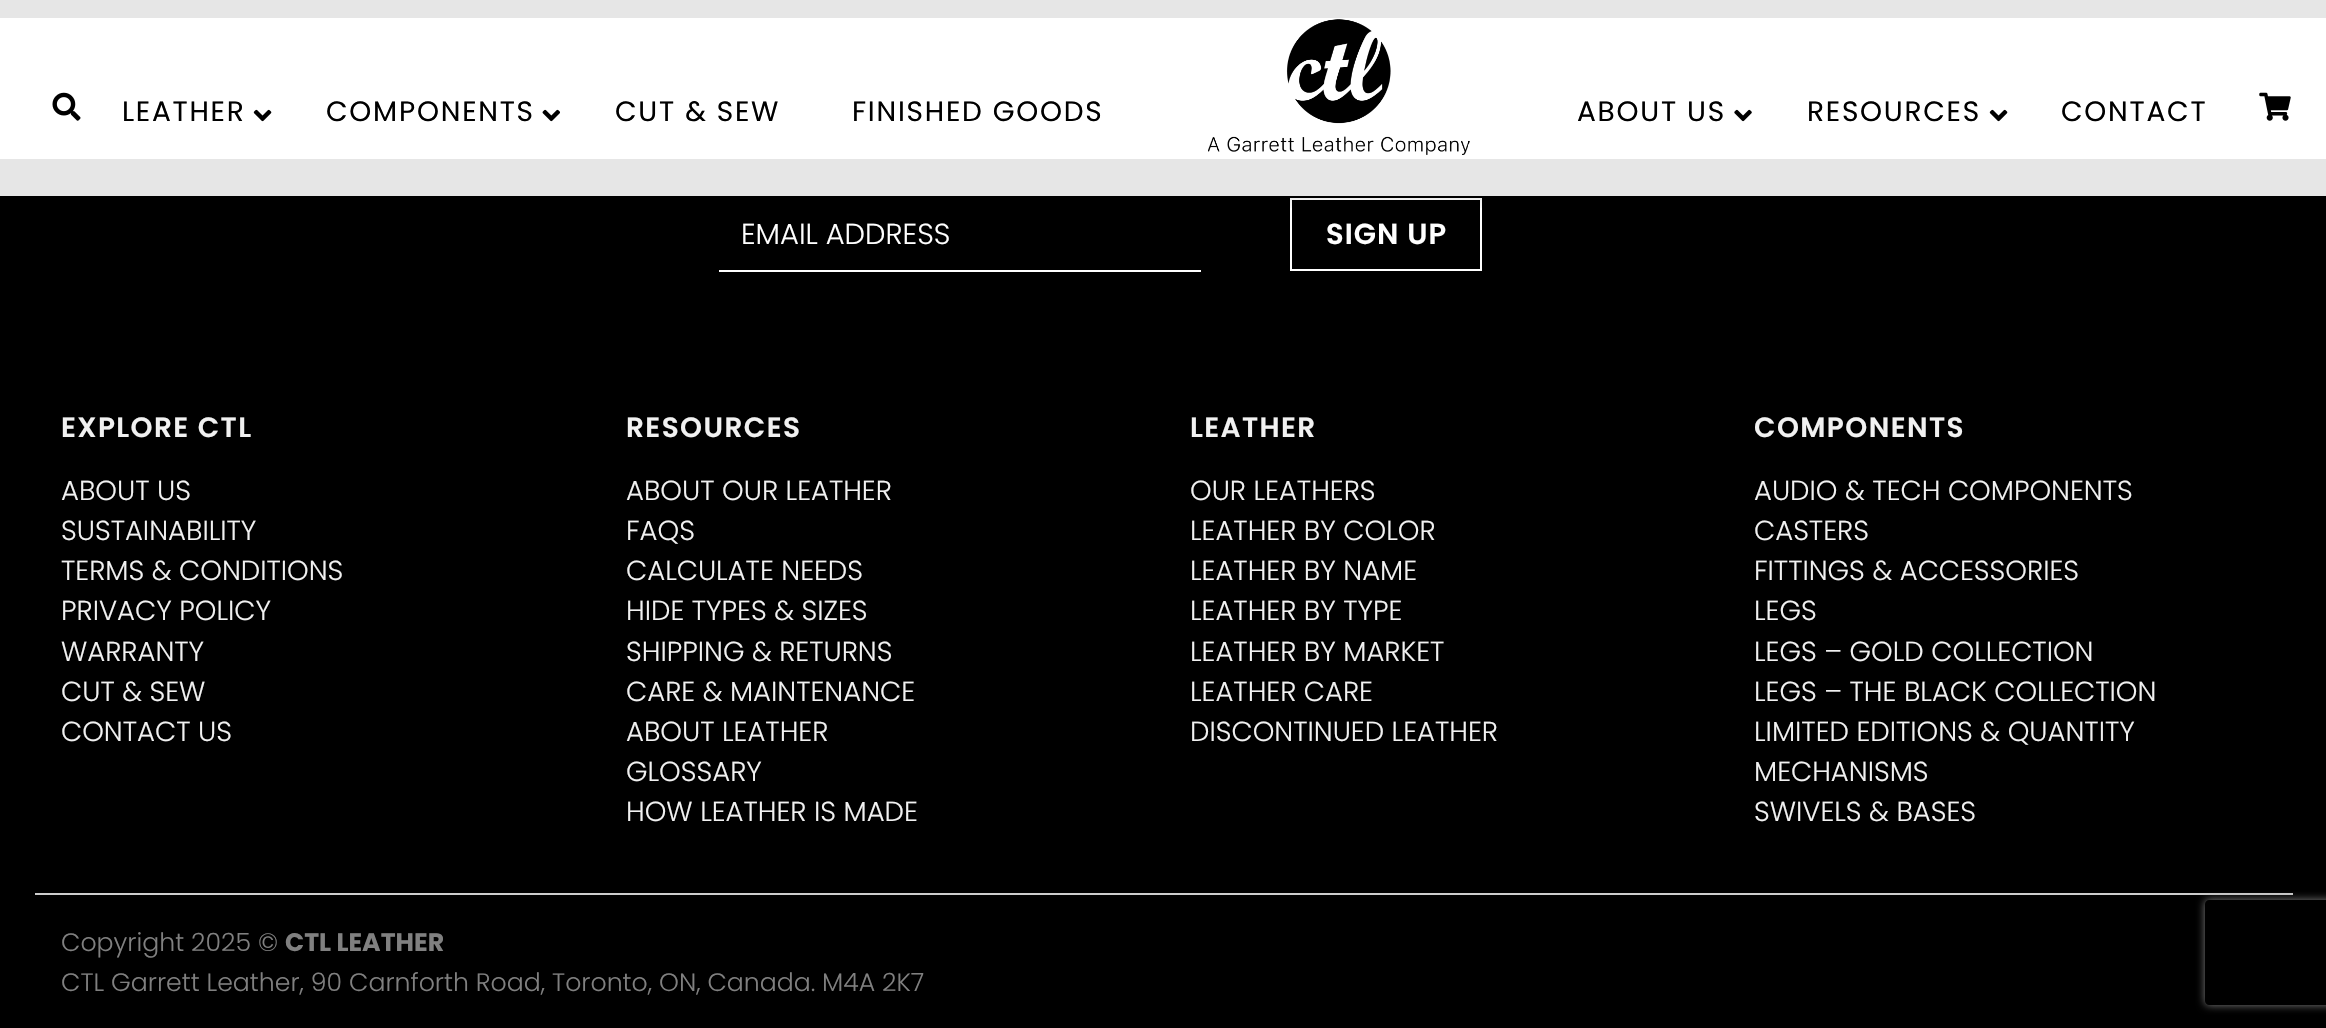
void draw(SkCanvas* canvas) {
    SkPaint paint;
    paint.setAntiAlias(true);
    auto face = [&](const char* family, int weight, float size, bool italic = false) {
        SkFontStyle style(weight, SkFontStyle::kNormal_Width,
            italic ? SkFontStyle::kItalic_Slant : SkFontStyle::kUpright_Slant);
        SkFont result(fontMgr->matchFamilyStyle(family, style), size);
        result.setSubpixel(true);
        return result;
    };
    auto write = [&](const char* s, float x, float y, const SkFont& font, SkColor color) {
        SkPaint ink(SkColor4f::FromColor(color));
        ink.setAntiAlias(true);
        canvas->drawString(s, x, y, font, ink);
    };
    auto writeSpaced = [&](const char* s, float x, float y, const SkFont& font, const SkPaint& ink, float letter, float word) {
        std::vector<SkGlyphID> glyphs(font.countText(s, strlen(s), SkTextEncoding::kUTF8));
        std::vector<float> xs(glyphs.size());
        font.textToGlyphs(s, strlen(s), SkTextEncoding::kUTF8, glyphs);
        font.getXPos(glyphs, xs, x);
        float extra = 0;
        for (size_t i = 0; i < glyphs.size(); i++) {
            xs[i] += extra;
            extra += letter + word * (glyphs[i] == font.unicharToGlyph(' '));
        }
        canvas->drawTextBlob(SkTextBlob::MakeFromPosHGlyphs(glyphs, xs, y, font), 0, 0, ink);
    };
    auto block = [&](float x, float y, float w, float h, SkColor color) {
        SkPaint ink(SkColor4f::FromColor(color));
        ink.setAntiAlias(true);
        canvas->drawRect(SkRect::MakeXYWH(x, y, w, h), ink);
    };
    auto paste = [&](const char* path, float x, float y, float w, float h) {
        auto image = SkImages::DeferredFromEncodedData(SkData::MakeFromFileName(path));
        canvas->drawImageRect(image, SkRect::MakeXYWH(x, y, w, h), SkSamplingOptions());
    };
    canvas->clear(SK_ColorBLACK);
    block(0, 0, 2326, 196, SkColorSetRGB(230, 230, 230));
    paint.setStyle(SkPaint::kStroke_Style);
    paint.setStrokeWidth(2);
    paint.setColor(SK_ColorWHITE);
    canvas->drawRect(SkRect::MakeXYWH(1291, 199, 190, 71), paint);
    canvas->save();
    canvas->clipRect(SkRect::MakeXYWH(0, 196, 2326, 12));
    paint.setStyle(SkPaint::kFill_Style);
    paint.setColor(SkColorSetARGB(38, 0, 0, 0));
    paint.setMaskFilter(SkMaskFilter::MakeBlur(kNormal_SkBlurStyle, 9));
    canvas->drawRect(SkRect::MakeXYWH(2, 2, 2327, 196), paint);
    paint.setMaskFilter(nullptr);
    canvas->restore();
    block(0, 18, 2326, 141, SK_ColorWHITE);
    paste("pic1.png", 52, 92, 29, 29);
    auto kFont1 = face("Poppins", 400, 28);
    paint.setColor(SK_ColorBLACK);
    writeSpaced("LEATHER", 122, 121, kFont1, paint, 1.75f, 0);
    paste("pic2.png", 253, 109, 19, 13);
    writeSpaced("COMPONENTS", 326, 121, kFont1, paint, 1.75f, 0);
    paste("pic3.png", 542, 109, 18, 13);
    writeSpaced("CUT & SEW", 615, 121, kFont1, paint, 1.75f, 0);
    writeSpaced("FINISHED GOODS", 852, 121, kFont1, paint, 1.75f, 0);
    paste("pic4.png", 1208, 19, 262, 136);
    writeSpaced("ABOUT US", 1577, 121, kFont1, paint, 1.75f, 0);
    paste("pic5.png", 1734, 109, 18, 13);
    writeSpaced("RESOURCES", 1807, 121, kFont1, paint, 1.75f, 0);
    paste("pic2.png", 1989, 109, 19, 13);
    writeSpaced("CONTACT", 2061, 121, kFont1, paint, 1.75f, 0);
    paste("pic6.png", 2259, 92, 32, 29);
    block(719, 270, 482, 2, SK_ColorWHITE);
    auto kFont2 = face("Poppins", 300, 29);
    write("EMAIL ADDRESS", 741, 244, kFont2, SK_ColorWHITE);
    auto kFont3 = face("Poppins", 600, 29);
    paint.setColor(SK_ColorWHITE);
    writeSpaced("SIGN UP", 1326, 244, kFont3, paint, 1, 0);
    auto kFont4 = face("Poppins", 600, 28);
    paint.setColor(SkColorSetRGB(241, 241, 241));
    writeSpaced("EXPLORE CTL", 61, 437, kFont4, paint, 1.4f, 0);
    auto kFont5 = face("Poppins", 300, 27.5f);
    write("ABOUT US", 61, 500, kFont5, SkColorSetRGB(241, 241, 241));
    write("SUSTAINABILITY", 61, 540, kFont5, SkColorSetRGB(241, 241, 241));
    write("TERMS & CONDITIONS", 61, 580, kFont5, SkColorSetRGB(241, 241, 241));
    write("PRIVACY POLICY", 61, 620, kFont5, SkColorSetRGB(241, 241, 241));
    write("WARRANTY", 61, 661, kFont5, SkColorSetRGB(241, 241, 241));
    write("CUT & SEW", 61, 701, kFont5, SkColorSetRGB(241, 241, 241));
    write("CONTACT US", 61, 741, kFont5, SkColorSetRGB(241, 241, 241));
    writeSpaced("RESOURCES", 626, 437, kFont4, paint, 1.4f, 0);
    write("ABOUT OUR LEATHER", 626, 500, kFont5, SkColorSetRGB(241, 241, 241));
    write("FAQS", 626, 540, kFont5, SkColorSetRGB(241, 241, 241));
    write("CALCULATE NEEDS", 626, 580, kFont5, SkColorSetRGB(241, 241, 241));
    write("HIDE TYPES & SIZES", 626, 620, kFont5, SkColorSetRGB(241, 241, 241));
    write("SHIPPING & RETURNS", 626, 661, kFont5, SkColorSetRGB(241, 241, 241));
    write("CARE & MAINTENANCE", 626, 701, kFont5, SkColorSetRGB(241, 241, 241));
    write("ABOUT LEATHER", 626, 741, kFont5, SkColorSetRGB(241, 241, 241));
    write("GLOSSARY", 626, 781, kFont5, SkColorSetRGB(241, 241, 241));
    write("HOW LEATHER IS MADE", 626, 821, kFont5, SkColorSetRGB(241, 241, 241));
    writeSpaced("LEATHER", 1190, 437, kFont4, paint, 1.4f, 0);
    write("OUR LEATHERS", 1190, 500, kFont5, SkColorSetRGB(241, 241, 241));
    write("LEATHER BY COLOR", 1190, 540, kFont5, SkColorSetRGB(241, 241, 241));
    write("LEATHER BY NAME", 1190, 580, kFont5, SkColorSetRGB(241, 241, 241));
    write("LEATHER BY TYPE", 1190, 620, kFont5, SkColorSetRGB(241, 241, 241));
    write("LEATHER BY MARKET", 1190, 661, kFont5, SkColorSetRGB(241, 241, 241));
    write("LEATHER CARE", 1190, 701, kFont5, SkColorSetRGB(241, 241, 241));
    write("DISCONTINUED LEATHER", 1190, 741, kFont5, SkColorSetRGB(241, 241, 241));
    writeSpaced("COMPONENTS", 1754, 437, kFont4, paint, 1.4f, 0);
    write("AUDIO & TECH COMPONENTS", 1754, 500, kFont5, SkColorSetRGB(241, 241, 241));
    write("CASTERS", 1754, 540, kFont5, SkColorSetRGB(241, 241, 241));
    write("FITTINGS & ACCESSORIES", 1754, 580, kFont5, SkColorSetRGB(241, 241, 241));
    write("LEGS", 1754, 620, kFont5, SkColorSetRGB(241, 241, 241));
    write("LEGS – GOLD COLLECTION", 1754, 661, kFont5, SkColorSetRGB(241, 241, 241));
    write("LEGS – THE BLACK COLLECTION", 1754, 701, kFont5, SkColorSetRGB(241, 241, 241));
    write("LIMITED EDITIONS & QUANTITY", 1754, 741, kFont5, SkColorSetRGB(241, 241, 241));
    write("MECHANISMS", 1754, 781, kFont5, SkColorSetRGB(241, 241, 241));
    write("SWIVELS & BASES", 1754, 821, kFont5, SkColorSetRGB(241, 241, 241));
    block(35, 893, 2258, 2, SkColorSetRGB(204, 204, 204));
    auto kFont6 = face("Poppins", 300, 25.2f);
    write("Copyright 2025 ©", 61, 951, kFont6, SkColorSetRGB(128, 128, 128));
    auto kFont7 = face("Poppins", 700, 25.2f);
    write("CTL LEATHER", 285, 951, kFont7, SkColorSetRGB(128, 128, 128));
    write("CTL Garrett Leather, 90 Carnforth Road, Toronto, ON, Canada.", 61, 991, kFont6, SkColorSetRGB(128, 128, 128));
    write("M4A 2K7", 822, 991, kFont6, SkColorSetRGB(128, 128, 128));
    canvas->save();
    canvas->clipPath(SkPathBuilder(SkPathFillType::kEvenOdd).moveTo(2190, 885).lineTo(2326, 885).lineTo(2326, 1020).lineTo(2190, 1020).close().moveTo(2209, 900).lineTo(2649, 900).cubicTo(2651, 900, 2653, 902, 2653, 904).lineTo(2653, 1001).cubicTo(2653, 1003, 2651, 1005, 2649, 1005).lineTo(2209, 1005).cubicTo(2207, 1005, 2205, 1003, 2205, 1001).lineTo(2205, 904).cubicTo(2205, 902, 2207, 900, 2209, 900).close().detach(), true);
    paint.setColor(SkColorSetRGB(128, 128, 128));
    paint.setMaskFilter(SkMaskFilter::MakeBlur(kNormal_SkBlurStyle, 4.5f));
    canvas->drawRoundRect(SkRect::MakeXYWH(2205, 900, 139, 105), 4, 4, paint);
    paint.setMaskFilter(nullptr);
    canvas->restore();
}
